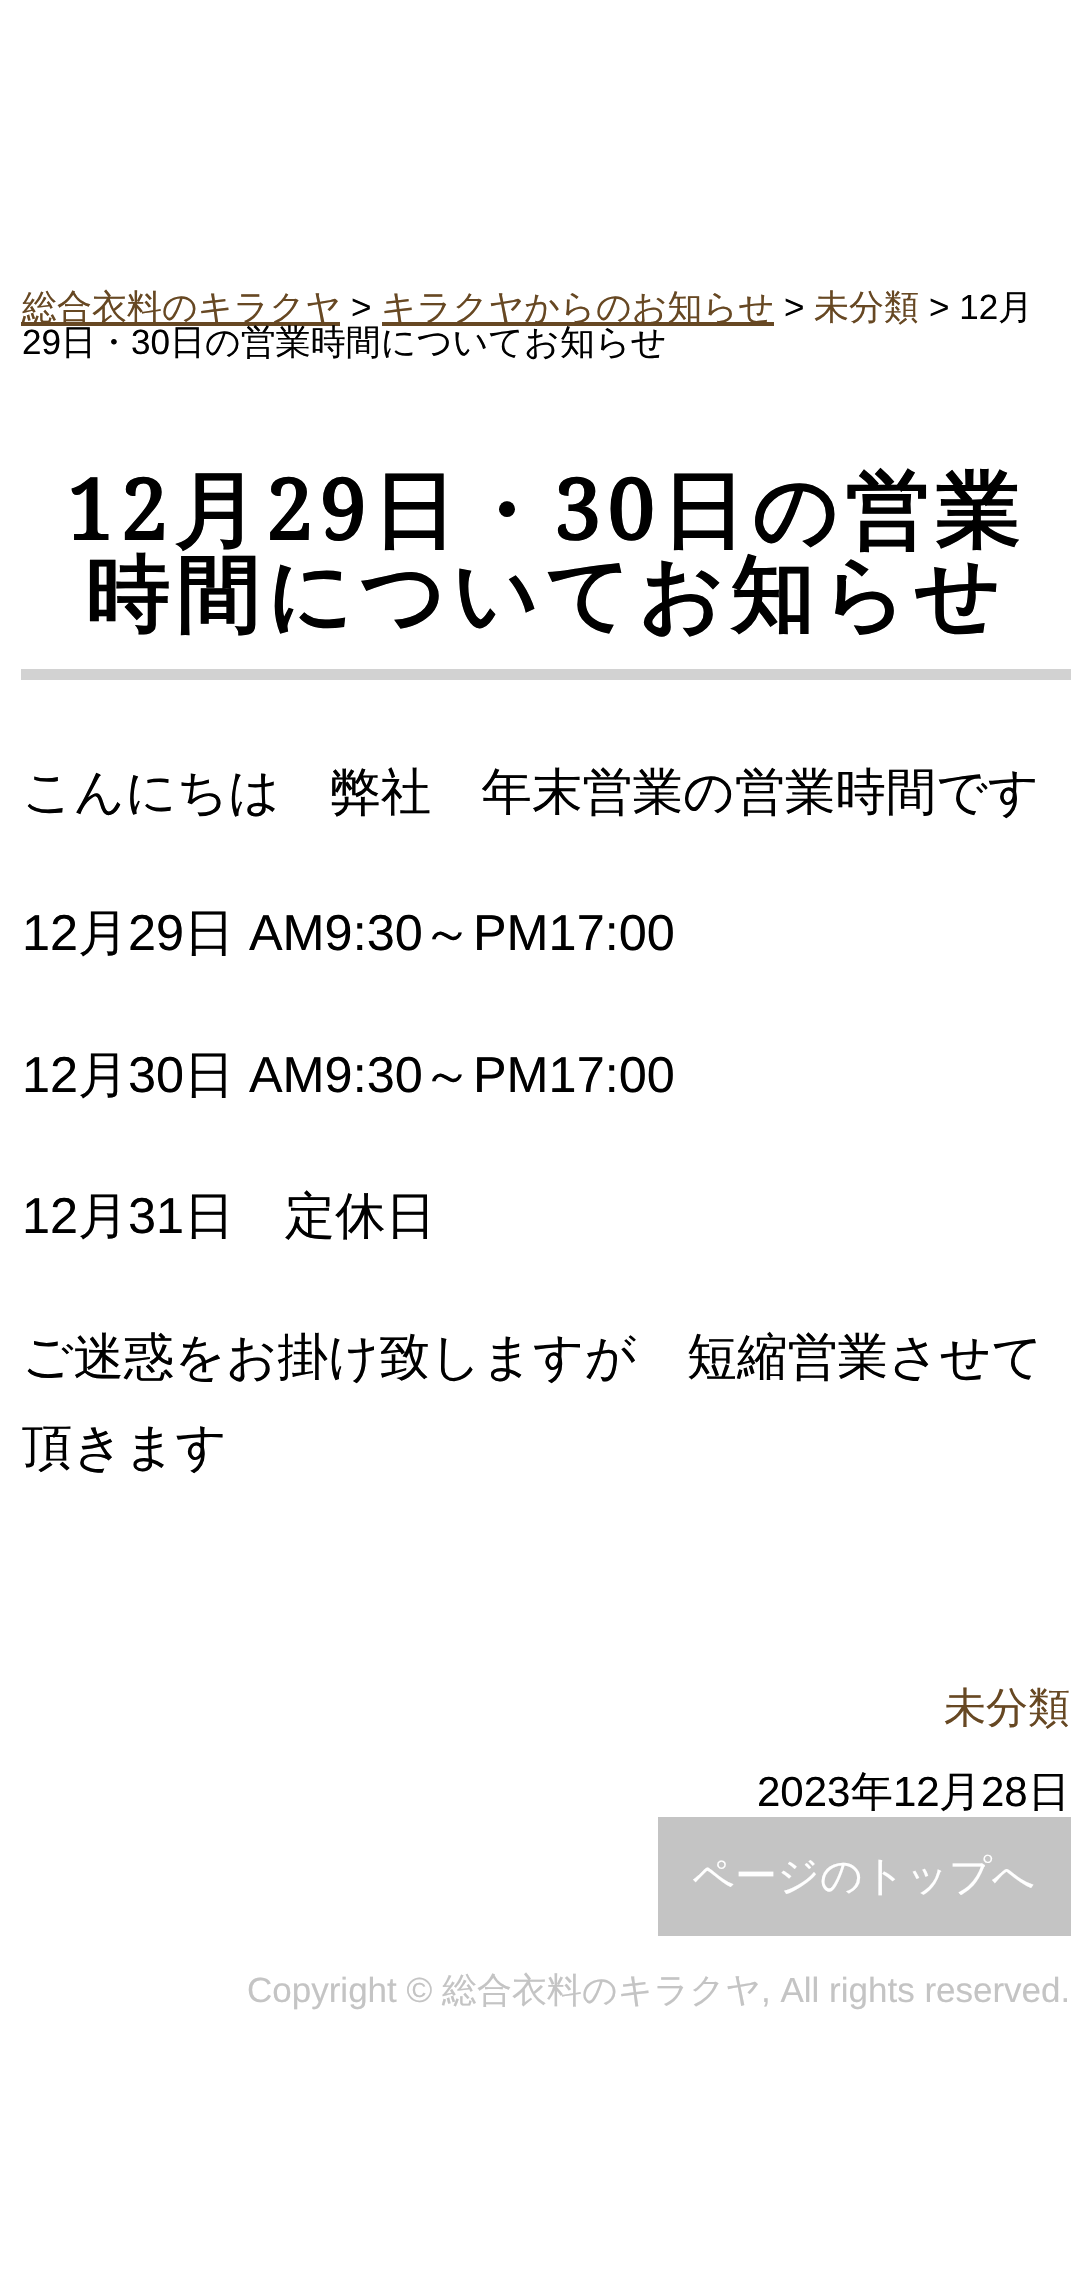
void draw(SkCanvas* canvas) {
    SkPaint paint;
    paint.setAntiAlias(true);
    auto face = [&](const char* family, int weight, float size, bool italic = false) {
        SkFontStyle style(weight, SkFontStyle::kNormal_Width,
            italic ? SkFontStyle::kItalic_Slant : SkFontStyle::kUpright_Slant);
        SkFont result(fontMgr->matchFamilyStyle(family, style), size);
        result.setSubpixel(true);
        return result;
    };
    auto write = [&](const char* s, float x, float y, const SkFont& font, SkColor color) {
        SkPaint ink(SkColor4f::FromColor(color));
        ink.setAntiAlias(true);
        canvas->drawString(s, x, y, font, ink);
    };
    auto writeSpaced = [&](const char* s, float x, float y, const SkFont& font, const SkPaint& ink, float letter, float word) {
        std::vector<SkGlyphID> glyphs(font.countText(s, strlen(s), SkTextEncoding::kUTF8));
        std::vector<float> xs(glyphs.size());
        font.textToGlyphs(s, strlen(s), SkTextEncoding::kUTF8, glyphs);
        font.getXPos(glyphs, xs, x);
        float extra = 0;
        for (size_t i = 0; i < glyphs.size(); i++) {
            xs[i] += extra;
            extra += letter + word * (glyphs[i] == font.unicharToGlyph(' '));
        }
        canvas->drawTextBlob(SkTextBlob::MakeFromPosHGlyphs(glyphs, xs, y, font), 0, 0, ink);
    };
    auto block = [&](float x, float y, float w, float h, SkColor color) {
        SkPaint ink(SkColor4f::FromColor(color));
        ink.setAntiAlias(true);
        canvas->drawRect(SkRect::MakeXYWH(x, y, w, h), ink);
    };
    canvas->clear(SK_ColorWHITE);
    block(21, 322, 319, 4, SkColorSetRGB(103, 72, 35));
    auto kFont1 = face("WenQuanYi Zen Hei", 500, 35);
    write("総合衣料のキラクヤ", 22, 319, kFont1, SkColorSetRGB(103, 72, 35));
    auto kFont2 = face("Liberation Sans", 400, 35);
    write(">", 351, 319, kFont2, SK_ColorBLACK);
    block(382, 322, 392, 4, SkColorSetRGB(103, 72, 35));
    write("キラクヤからのお知らせ", 381, 319, kFont1, SkColorSetRGB(103, 72, 35));
    write(">", 784, 319, kFont2, SK_ColorBLACK);
    write("未分類", 814, 319, kFont1, SkColorSetRGB(103, 72, 35));
    write("> 12", 929, 319, kFont2, SK_ColorBLACK);
    write("月", 998, 319, kFont1, SK_ColorBLACK);
    write("29", 22, 354, kFont2, SK_ColorBLACK);
    write("日・", 61, 354, kFont1, SK_ColorBLACK);
    write("30", 131, 354, kFont2, SK_ColorBLACK);
    write("日の営業時間についてお知らせ", 170, 354, kFont1, SK_ColorBLACK);
    block(21, 669, 1050, 11, SkColorSetRGB(210, 210, 210));
    auto kFont3 = face("Noto Serif", 700, 84);
    paint.setColor(SK_ColorBLACK);
    writeSpaced("12", 66, 540, kFont3, paint, 6.75f, 0);
    auto kFont4 = face("WenQuanYi Zen Hei", 700, 84);
    writeSpaced("月", 174, 540, kFont4, paint, 6.75f, 0);
    writeSpaced("29", 265, 540, kFont3, paint, 6.75f, 0);
    writeSpaced("日・", 372, 540, kFont4, paint, 6.75f, 0);
    writeSpaced("30", 553, 540, kFont3, paint, 6.75f, 0);
    writeSpaced("日の営業", 661, 540, kFont4, paint, 6.75f, 0);
    writeSpaced("時間についてお知らせ", 85, 624, kFont4, paint, 6.75f, 0);
    auto kFont5 = face("WenQuanYi Zen Hei", 500, 50.4f);
    write("こんにちは　弊社　年末営業の営業時間です", 22, 809, kFont5, SK_ColorBLACK);
    auto kFont6 = face("Liberation Sans", 400, 50.4f);
    write("12", 22, 950, kFont6, SK_ColorBLACK);
    write("月", 78, 950, kFont5, SK_ColorBLACK);
    write("29", 128, 950, kFont6, SK_ColorBLACK);
    write("日", 184, 950, kFont5, SK_ColorBLACK);
    write("AM9:30", 249, 950, kFont6, SK_ColorBLACK);
    write("～", 422, 950, kFont5, SK_ColorBLACK);
    write("PM17:00", 473, 950, kFont6, SK_ColorBLACK);
    write("12", 22, 1092, kFont6, SK_ColorBLACK);
    write("月", 78, 1092, kFont5, SK_ColorBLACK);
    write("30", 128, 1092, kFont6, SK_ColorBLACK);
    write("日", 184, 1092, kFont5, SK_ColorBLACK);
    write("AM9:30", 249, 1092, kFont6, SK_ColorBLACK);
    write("～", 422, 1092, kFont5, SK_ColorBLACK);
    write("PM17:00", 473, 1092, kFont6, SK_ColorBLACK);
    write("12", 22, 1233, kFont6, SK_ColorBLACK);
    write("月", 78, 1233, kFont5, SK_ColorBLACK);
    write("31", 128, 1233, kFont6, SK_ColorBLACK);
    write("日　定休日", 184, 1233, kFont5, SK_ColorBLACK);
    write("ご迷惑をお掛け致しますが　短縮営業させて", 22, 1374, kFont5, SK_ColorBLACK);
    write("頂きます", 22, 1464, kFont5, SK_ColorBLACK);
    auto kFont7 = face("WenQuanYi Zen Hei", 500, 42);
    write("未分類", 944, 1722, kFont7, SkColorSetRGB(103, 72, 35));
    auto kFont8 = face("Liberation Sans", 400, 42);
    write("2023", 757, 1806, kFont8, SK_ColorBLACK);
    write("年", 851, 1806, kFont7, SK_ColorBLACK);
    write("12", 893, 1806, kFont8, SK_ColorBLACK);
    write("月", 939, 1806, kFont7, SK_ColorBLACK);
    write("28", 981, 1806, kFont8, SK_ColorBLACK);
    write("日", 1028, 1806, kFont7, SK_ColorBLACK);
    block(658, 1817, 413, 119, SkColorSetRGB(196, 196, 196));
    write("ページのトップへ", 692, 1890, kFont7, SK_ColorWHITE);
    write("Copyright ©", 247, 2002, kFont2, SkColorSetRGB(196, 196, 196));
    write("総合衣料のキラクヤ", 442, 2002, kFont1, SkColorSetRGB(196, 196, 196));
    write(", All rights reserved.", 761, 2002, kFont2, SkColorSetRGB(196, 196, 196));
}
